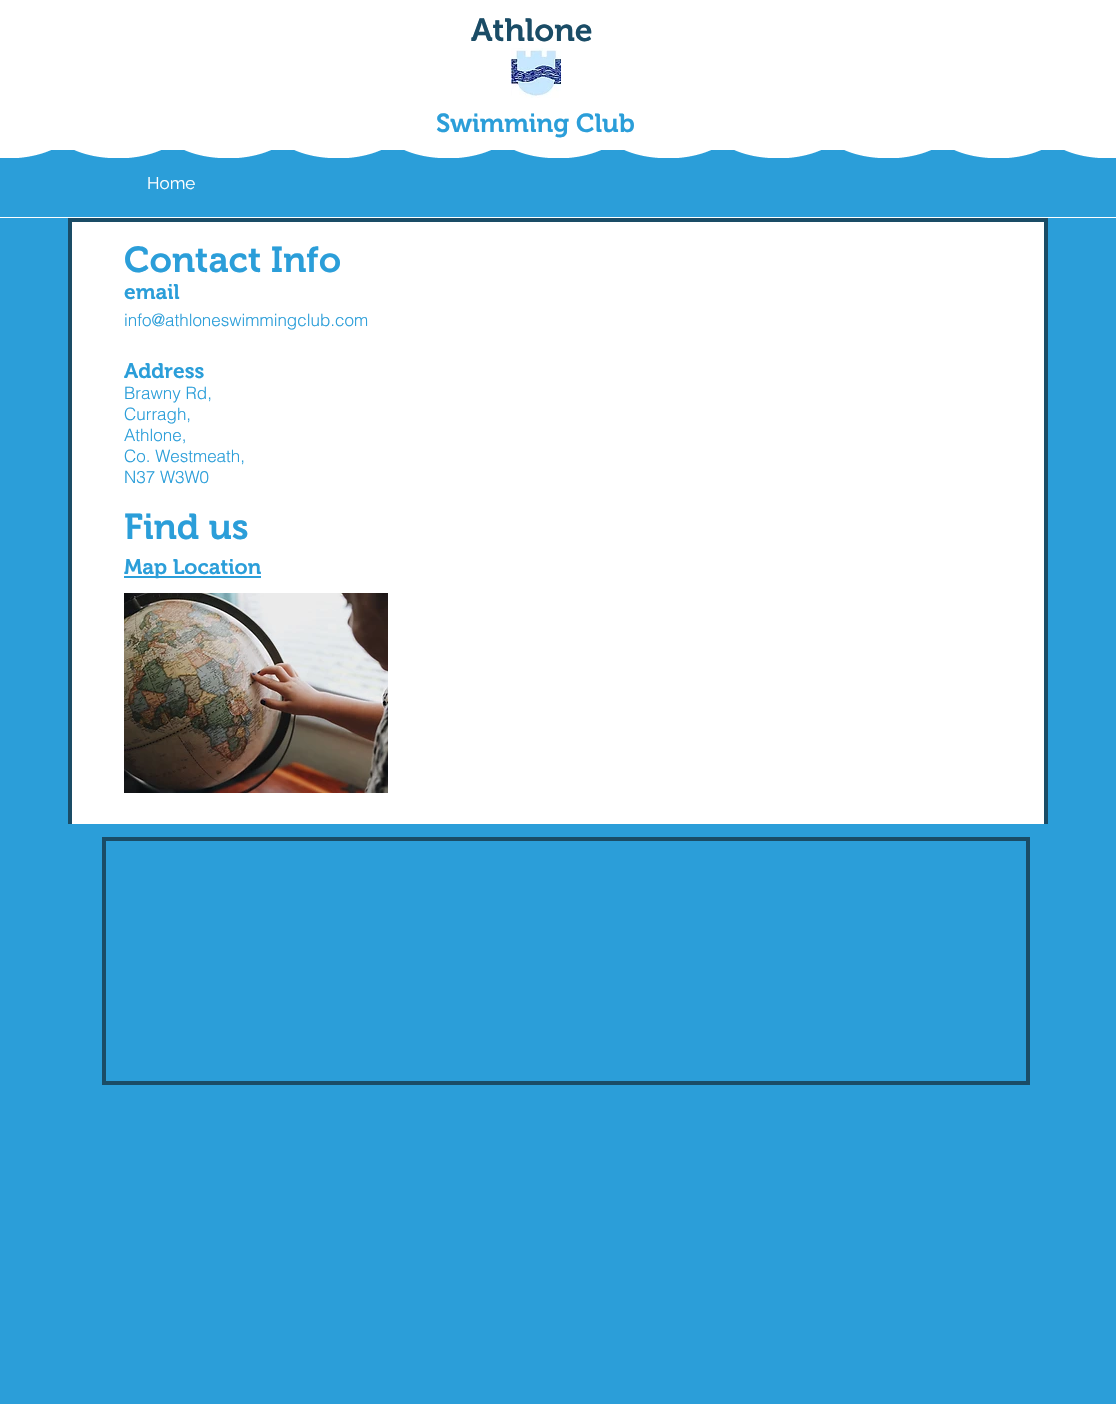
void draw(SkCanvas* canvas) {
    SkPaint paint;
    paint.setAntiAlias(true);
    auto face = [&](const char* family, int weight, float size, bool italic = false) {
        SkFontStyle style(weight, SkFontStyle::kNormal_Width,
            italic ? SkFontStyle::kItalic_Slant : SkFontStyle::kUpright_Slant);
        SkFont result(fontMgr->matchFamilyStyle(family, style), size);
        result.setSubpixel(true);
        return result;
    };
    auto write = [&](const char* s, float x, float y, const SkFont& font, SkColor color) {
        SkPaint ink(SkColor4f::FromColor(color));
        ink.setAntiAlias(true);
        canvas->drawString(s, x, y, font, ink);
    };
    auto block = [&](float x, float y, float w, float h, SkColor color) {
        SkPaint ink(SkColor4f::FromColor(color));
        ink.setAntiAlias(true);
        canvas->drawRect(SkRect::MakeXYWH(x, y, w, h), ink);
    };
    auto paste = [&](const char* path, float x, float y, float w, float h) {
        auto image = SkImages::DeferredFromEncodedData(SkData::MakeFromFileName(path));
        canvas->drawImageRect(image, SkRect::MakeXYWH(x, y, w, h), SkSamplingOptions());
    };
    canvas->clear(SkColorSetRGB(43, 158, 217));
    block(0, 0, 1116, 218, SK_ColorWHITE);
    auto kFont1 = face("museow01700", 600, 32);
    write("Athlone", 471, 41, kFont1, SkColorSetRGB(26, 76, 102));
    paste("pic1.png", 511, 48, 50, 50);
    auto kFont2 = face("museow01700", 600, 26);
    write("Swimming Club", 436, 132, kFont2, SkColorSetRGB(43, 158, 217));
    paste("pic2.png", 19, 150, 1079, 8);
    block(0, 158, 1116, 59, SkColorSetRGB(43, 158, 217));
    auto kFont3 = face("Raleway", 400, 17);
    write("Home", 147, 189, kFont3, SK_ColorWHITE);
    block(72, 222, 972, 602, SK_ColorWHITE);
    paint.setStyle(SkPaint::kStroke_Style);
    paint.setStrokeWidth(4);
    paint.setColor(SkColorSetRGB(26, 76, 102));
    canvas->drawRect(SkRect::MakeXYWH(70, 220, 976, 608), paint);
    auto kFont4 = face("museow01700", 600, 36);
    write("Contact Info", 124, 272, kFont4, SkColorSetRGB(43, 158, 217));
    auto kFont5 = face("museow01700", 600, 21);
    write("email", 124, 299, kFont5, SkColorSetRGB(43, 158, 217));
    auto kFont6 = face("helvetica", 300, 17);
    write("info@athloneswimmingclub.com", 124, 326, kFont6, SkColorSetRGB(43, 158, 217));
    write("Address", 124, 378, kFont5, SkColorSetRGB(43, 158, 217));
    write("Brawny Rd,", 124, 399, kFont6, SkColorSetRGB(43, 158, 217));
    write("Curragh,", 124, 420, kFont6, SkColorSetRGB(43, 158, 217));
    write("Athlone,", 124, 441, kFont6, SkColorSetRGB(43, 158, 217));
    write("Co. Westmeath,", 124, 462, kFont6, SkColorSetRGB(43, 158, 217));
    write("N37 W3W0", 124, 483, kFont6, SkColorSetRGB(43, 158, 217));
    write("Find us", 124, 539, kFont4, SkColorSetRGB(43, 158, 217));
    block(124, 576, 137, 2, SkColorSetRGB(43, 158, 217));
    write("Map Location", 124, 574, kFont5, SkColorSetRGB(43, 158, 217));
    paste("pic3.png", 124, 593, 264, 200);
    block(68, 824, 980, 6, SkColorSetRGB(43, 158, 217));
    canvas->drawRect(SkRect::MakeXYWH(104, 839, 924, 244), paint);
}
